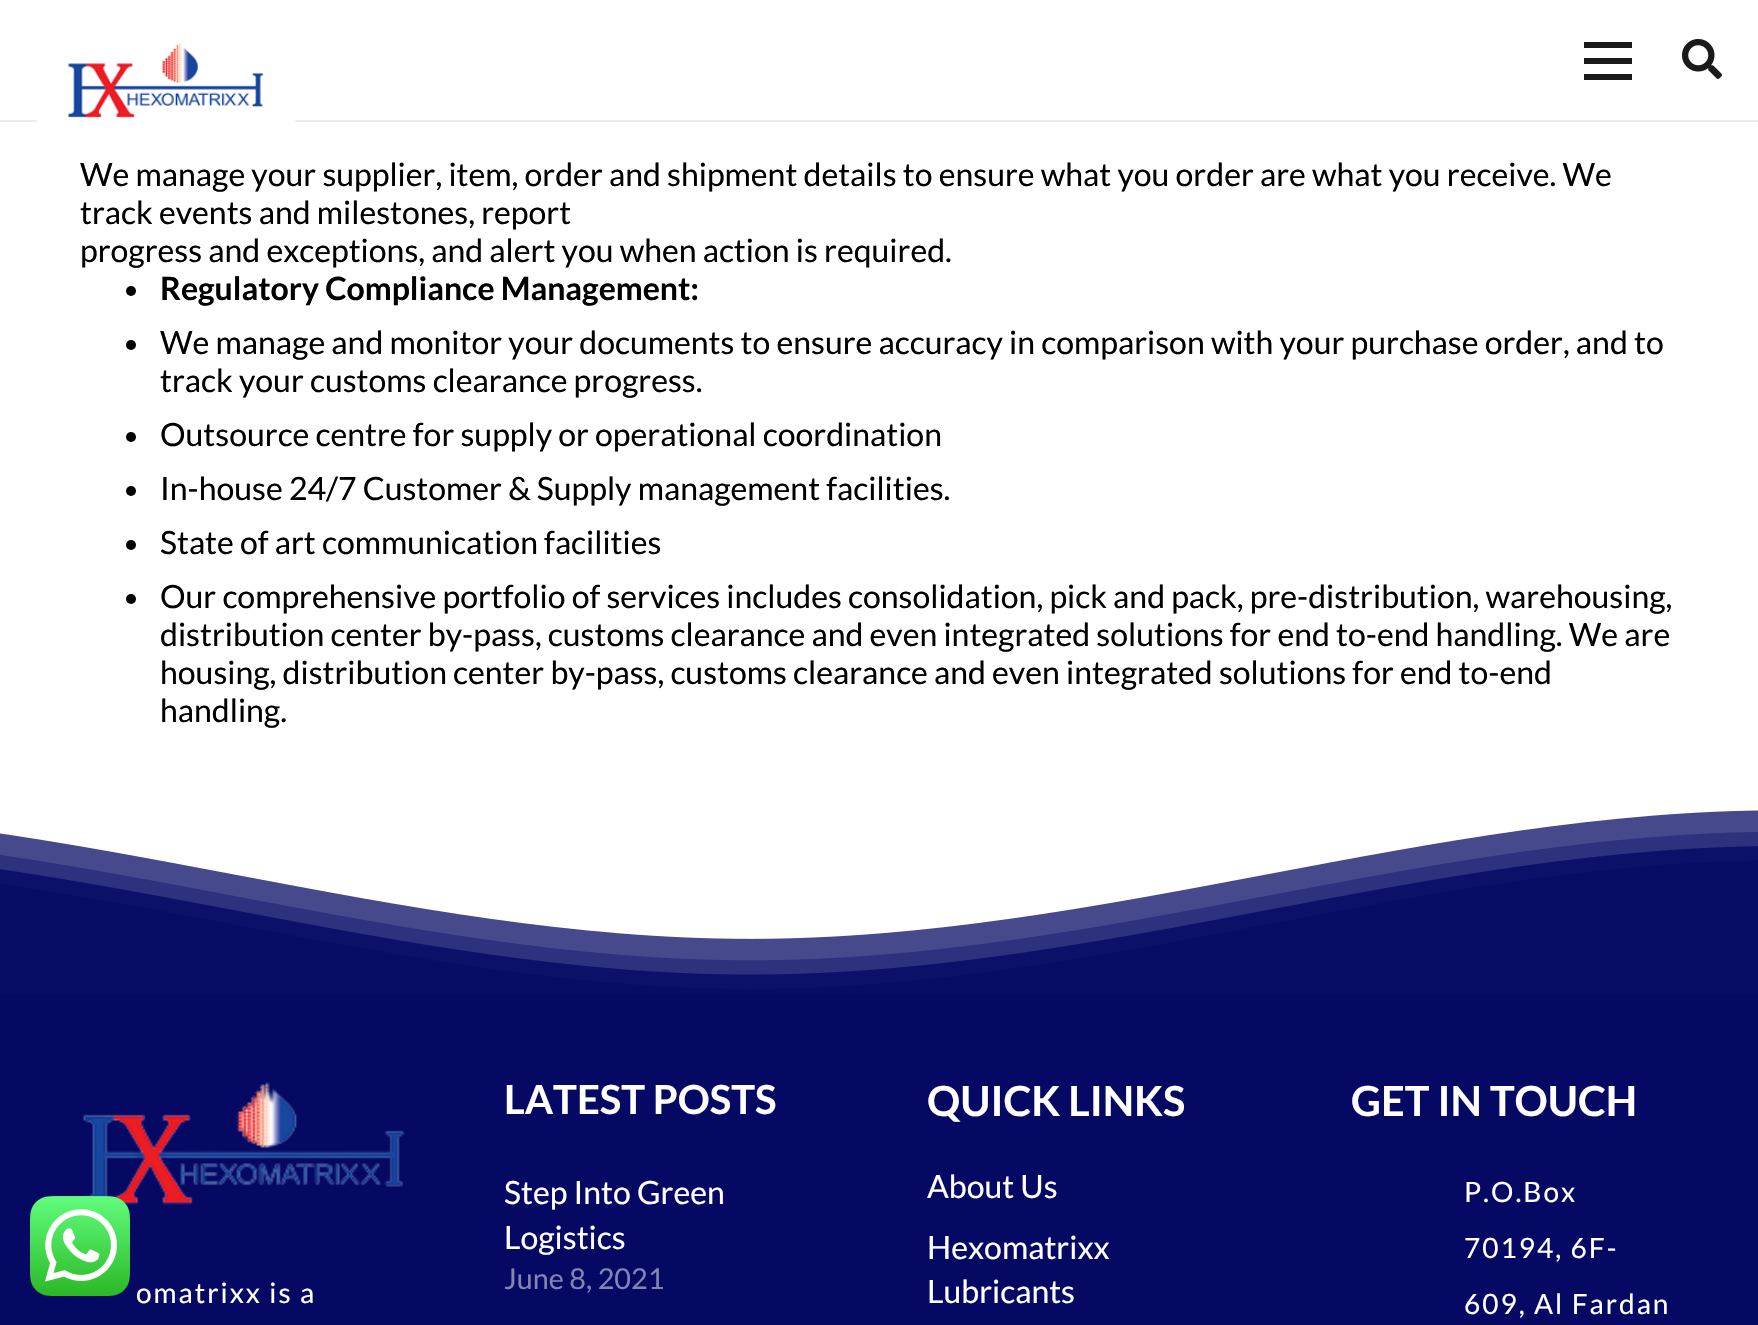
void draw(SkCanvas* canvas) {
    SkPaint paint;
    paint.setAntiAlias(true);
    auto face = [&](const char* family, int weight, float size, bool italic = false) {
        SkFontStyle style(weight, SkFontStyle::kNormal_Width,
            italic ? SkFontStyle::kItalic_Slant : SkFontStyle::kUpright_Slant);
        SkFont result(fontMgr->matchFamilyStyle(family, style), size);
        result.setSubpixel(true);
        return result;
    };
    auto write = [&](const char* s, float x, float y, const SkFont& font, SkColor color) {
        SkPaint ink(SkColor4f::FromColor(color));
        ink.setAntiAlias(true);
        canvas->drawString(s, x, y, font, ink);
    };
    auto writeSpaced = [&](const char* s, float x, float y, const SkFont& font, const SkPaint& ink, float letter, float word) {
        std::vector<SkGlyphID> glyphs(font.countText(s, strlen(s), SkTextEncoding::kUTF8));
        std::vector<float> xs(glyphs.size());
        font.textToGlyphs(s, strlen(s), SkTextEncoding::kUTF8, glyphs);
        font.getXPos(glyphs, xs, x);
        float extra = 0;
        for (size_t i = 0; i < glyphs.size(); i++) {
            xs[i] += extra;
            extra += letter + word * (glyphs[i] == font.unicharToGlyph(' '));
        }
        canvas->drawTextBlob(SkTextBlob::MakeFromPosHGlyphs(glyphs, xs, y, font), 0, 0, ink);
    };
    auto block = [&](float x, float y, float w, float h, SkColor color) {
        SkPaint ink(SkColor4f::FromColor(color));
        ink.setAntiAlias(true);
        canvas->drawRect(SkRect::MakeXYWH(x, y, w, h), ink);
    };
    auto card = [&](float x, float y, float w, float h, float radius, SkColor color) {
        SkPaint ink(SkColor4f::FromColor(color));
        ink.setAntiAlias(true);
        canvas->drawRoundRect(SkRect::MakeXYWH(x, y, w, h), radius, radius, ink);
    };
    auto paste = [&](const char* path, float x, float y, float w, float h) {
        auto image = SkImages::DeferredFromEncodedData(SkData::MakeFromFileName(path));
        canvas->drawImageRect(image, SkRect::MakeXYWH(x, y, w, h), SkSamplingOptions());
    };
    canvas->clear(SK_ColorWHITE);
    block(0, 120, 1758, 2, SkColorSetARGB(20, 0, 0, 0));
    card(32, 24, 268, 120, 42, SK_ColorWHITE);
    paste("pic1.png", 68, 43, 196, 75);
    block(1584, 58, 48, 6, SkColorSetRGB(26, 26, 26));
    block(1584, 42, 48, 6, SkColorSetRGB(26, 26, 26));
    block(1584, 74, 48, 6, SkColorSetRGB(26, 26, 26));
    paste("pic2.png", 1682, 39, 40, 40);
    auto kFont1 = face("Lato", 400, 32);
    write("We manage your supplier, item, order and shipment details to ensure what you order are what you receive. We", 80, 186, kFont1, SK_ColorBLACK);
    write("track events and milestones, report", 80, 224, kFont1, SK_ColorBLACK);
    write("progress and exceptions, and alert you when action is required.", 80, 262, kFont1, SK_ColorBLACK);
    paint.setColor(SK_ColorBLACK);
    canvas->drawCircle(131, 291, 5, paint);
    auto kFont2 = face("Lato", 700, 32);
    write("Regulatory Compliance Management:", 160, 300, kFont2, SK_ColorBLACK);
    canvas->drawCircle(131, 345, 5, paint);
    write("We manage and monitor your documents to ensure accuracy in comparison with your purchase order, and to", 160, 354, kFont1, SK_ColorBLACK);
    write("track your customs clearance progress.", 160, 392, kFont1, SK_ColorBLACK);
    canvas->drawCircle(131, 437, 5, paint);
    write("Outsource centre for supply or operational coordination", 160, 446, kFont1, SK_ColorBLACK);
    canvas->drawCircle(131, 491, 5, paint);
    write("In-house 24/7 Customer & Supply management facilities.", 160, 500, kFont1, SK_ColorBLACK);
    canvas->drawCircle(131, 545, 5, paint);
    write("State of art communication facilities", 160, 554, kFont1, SK_ColorBLACK);
    canvas->drawCircle(131, 599, 5, paint);
    write("Our comprehensive portfolio of services includes consolidation, pick and pack, pre-distribution, warehousing,", 160, 608, kFont1, SK_ColorBLACK);
    write("distribution center by-pass, customs clearance and even integrated solutions for end to-end handling. We are", 160, 646, kFont1, SK_ColorBLACK);
    write("housing, distribution center by-pass, customs clearance and even integrated solutions for end to-end", 160, 684, kFont1, SK_ColorBLACK);
    write("handling.", 160, 722, kFont1, SK_ColorBLACK);
    block(0, 994, 1758, 331, SkColorSetRGB(5, 9, 100));
    paste("pic5.png", 83, 1082, 322, 123);
    paste("pic3.png", 30, 1196, 100, 100);
    paste("pic4.png", 0, 810, 1758, 184);
    auto kFont3 = face("Lato", 400, 28);
    paint.setColor(SK_ColorWHITE);
    writeSpaced("omatrixx is a", 136, 1303, kFont3, paint, 2, 0);
    auto kFont4 = face("Lato", 700, 40);
    write("LATEST POSTS", 504, 1114, kFont4, SK_ColorWHITE);
    write("Step Into Green", 504, 1204, kFont1, SK_ColorWHITE);
    write("Logistics", 504, 1249, kFont1, SK_ColorWHITE);
    auto kFont5 = face("Lato", 400, 28.75f);
    write("June 8, 2021", 504, 1289, kFont5, SkColorSetRGB(130, 132, 178));
    auto kFont6 = face("Lato", 700, 41.5f);
    write("QUICK LINKS", 927, 1116, kFont6, SK_ColorWHITE);
    write("About Us", 927, 1198, kFont1, SK_ColorWHITE);
    write("Hexomatrixx", 927, 1259, kFont1, SK_ColorWHITE);
    write("Lubricants", 927, 1303, kFont1, SK_ColorWHITE);
    write("GET IN TOUCH", 1351, 1116, kFont6, SK_ColorWHITE);
    writeSpaced("P.O.Box", 1464, 1202, kFont3, paint, 2, 0);
    writeSpaced("70194, 6F-", 1464, 1258, kFont3, paint, 2, 0);
    writeSpaced("609, Al Fardan", 1464, 1314, kFont3, paint, 2, 0);
}
